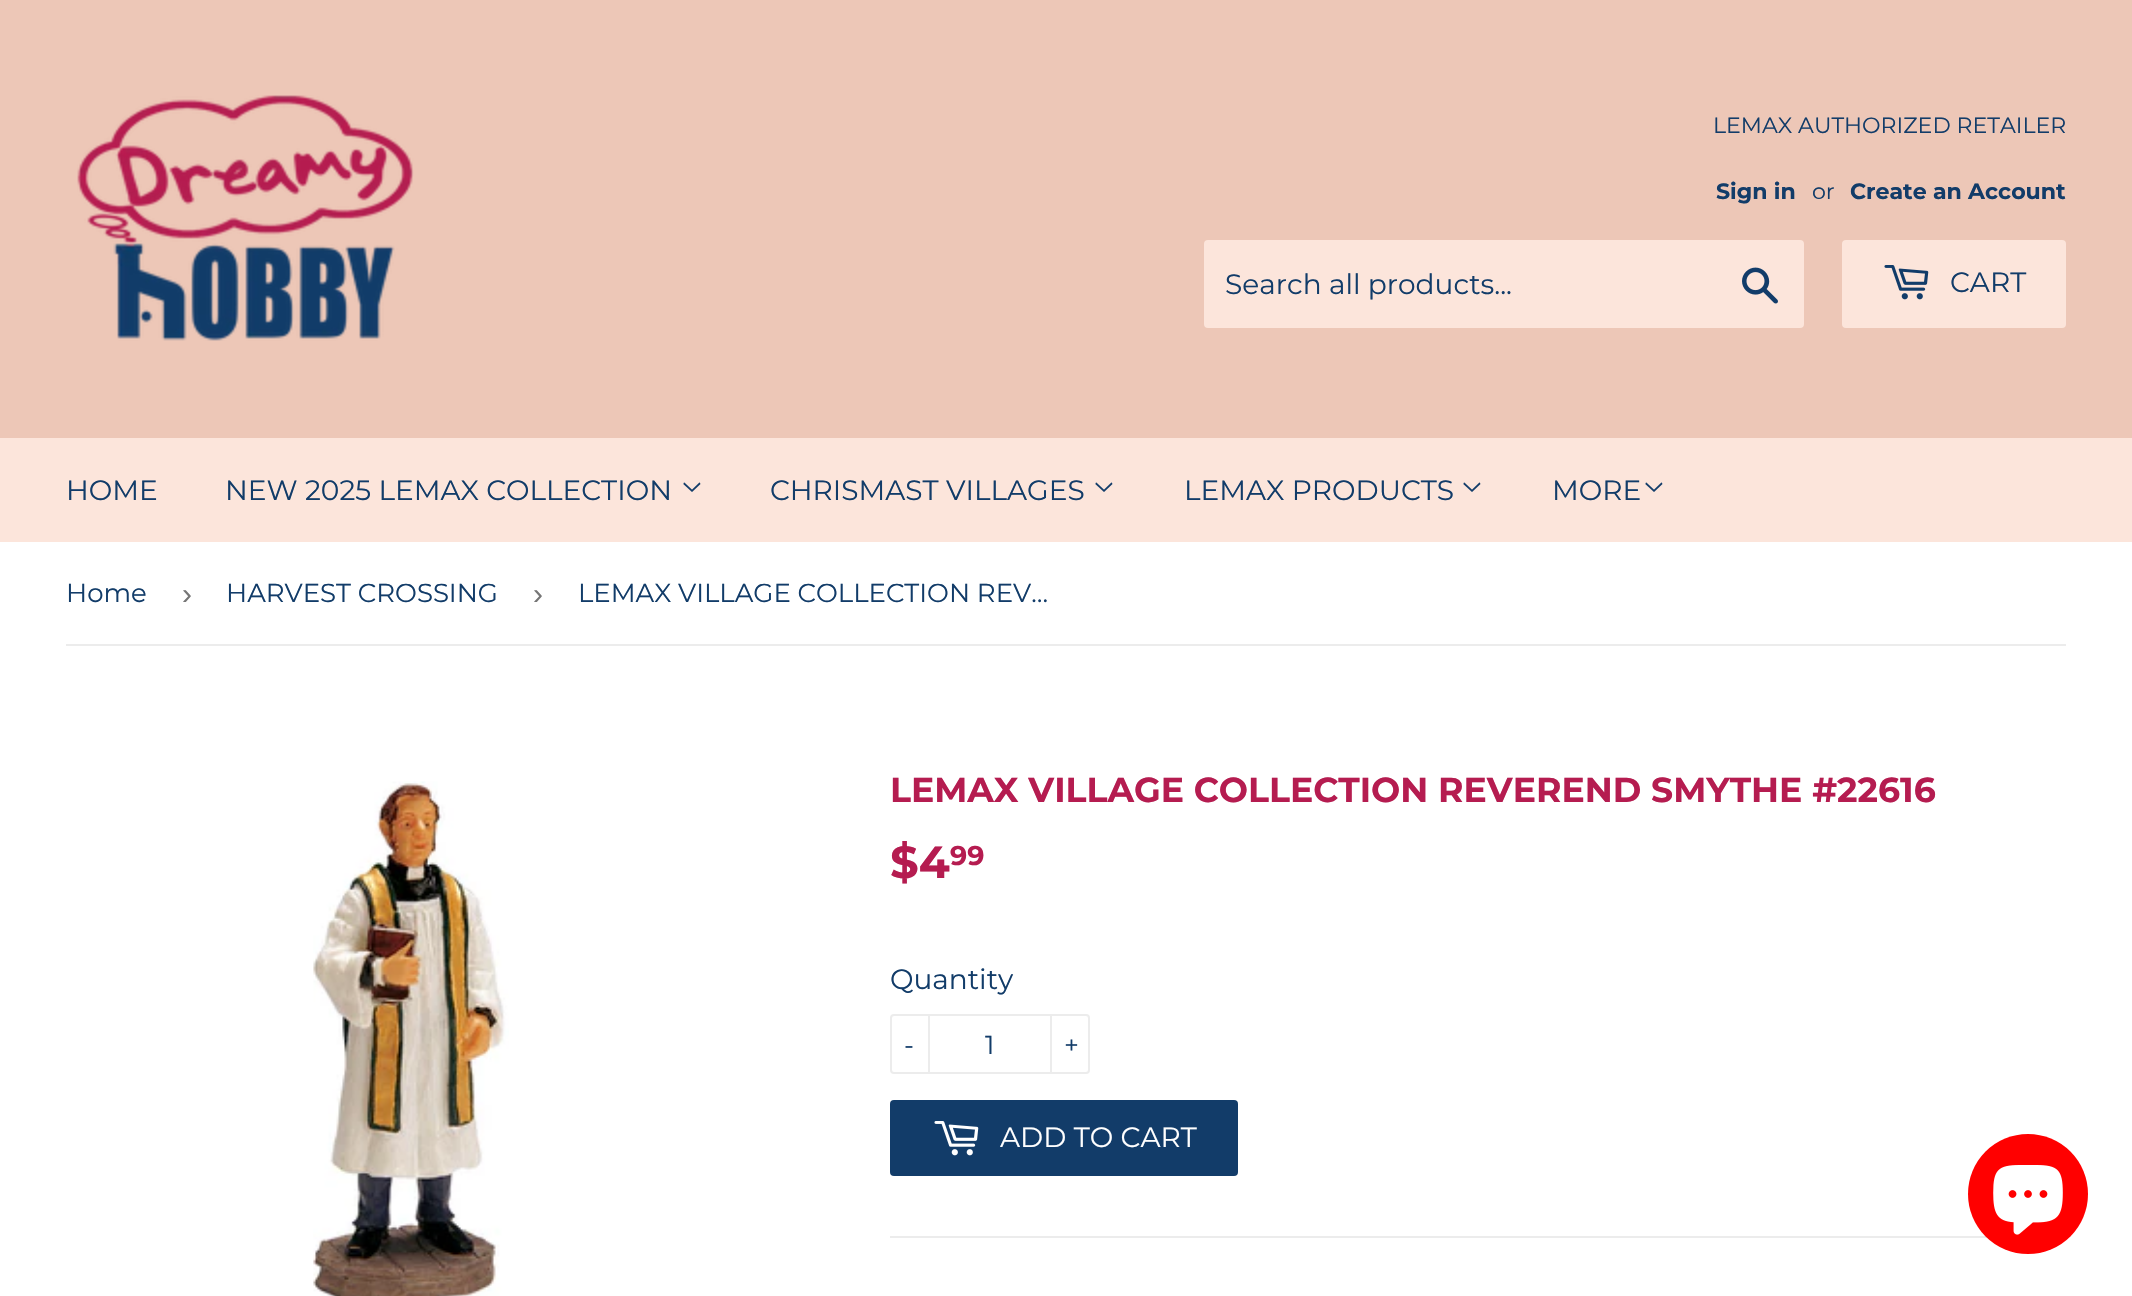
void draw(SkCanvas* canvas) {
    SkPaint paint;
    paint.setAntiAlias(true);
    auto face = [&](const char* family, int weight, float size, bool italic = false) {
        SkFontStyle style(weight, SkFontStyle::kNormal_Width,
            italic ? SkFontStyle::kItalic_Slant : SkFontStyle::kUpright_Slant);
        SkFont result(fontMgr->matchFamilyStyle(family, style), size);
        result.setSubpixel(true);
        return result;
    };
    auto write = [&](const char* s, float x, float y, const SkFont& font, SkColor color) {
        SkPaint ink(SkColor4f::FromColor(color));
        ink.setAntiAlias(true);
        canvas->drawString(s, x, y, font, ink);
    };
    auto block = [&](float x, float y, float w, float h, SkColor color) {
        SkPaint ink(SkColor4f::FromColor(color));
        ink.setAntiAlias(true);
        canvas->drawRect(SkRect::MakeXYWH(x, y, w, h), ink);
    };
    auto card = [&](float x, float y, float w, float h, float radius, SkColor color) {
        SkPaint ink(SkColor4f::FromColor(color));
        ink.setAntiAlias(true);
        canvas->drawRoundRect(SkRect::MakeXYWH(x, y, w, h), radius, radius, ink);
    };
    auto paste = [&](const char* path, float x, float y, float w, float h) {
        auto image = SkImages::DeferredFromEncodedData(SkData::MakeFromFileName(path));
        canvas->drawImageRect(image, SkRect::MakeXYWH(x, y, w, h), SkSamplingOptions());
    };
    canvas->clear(SK_ColorWHITE);
    block(0, 0, 2132, 438, SkColorSetRGB(237, 199, 183));
    paste("pic1.png", 77, 95, 337, 246);
    auto kFont1 = face("Montserrat", 400, 22.1f);
    write("LEMAX AUTHORIZED RETAILER", 1713, 133, kFont1, SkColorSetRGB(18, 60, 105));
    auto kFont2 = face("Montserrat", 700, 22.1f);
    write("Sign in", 1716, 199, kFont2, SkColorSetRGB(18, 60, 105));
    write("or", 1812, 199, kFont1, SkColorSetRGB(18, 60, 105));
    write("Create an Account", 1850, 199, kFont2, SkColorSetRGB(18, 60, 105));
    card(1204, 240, 600, 88, 4, SkColorSetRGB(252, 229, 219));
    auto kFont3 = face("Montserrat", 400, 28);
    write("Search all products...", 1225, 294, kFont3, SkColorSetRGB(18, 60, 105));
    paste("pic2.png", 1742, 267, 36, 37);
    card(1842, 240, 224, 88, 4, SkColorSetRGB(252, 229, 219));
    paste("pic3.png", 1884, 265, 45, 35);
    write("CART", 1950, 292, kFont3, SkColorSetRGB(18, 60, 105));
    block(0, 438, 2132, 104, SkColorSetRGB(252, 229, 219));
    write("HOME", 66, 500, kFont3, SkColorSetRGB(18, 60, 105));
    write("NEW 2025 LEMAX COLLECTION", 225, 500, kFont3, SkColorSetRGB(18, 60, 105));
    paste("pic4.png", 683, 482, 18, 10);
    write("CHRISMAST VILLAGES", 770, 500, kFont3, SkColorSetRGB(18, 60, 105));
    paste("pic4.png", 1095, 482, 18, 10);
    write("LEMAX PRODUCTS", 1184, 500, kFont3, SkColorSetRGB(18, 60, 105));
    paste("pic4.png", 1463, 482, 18, 10);
    write("MORE", 1552, 500, kFont3, SkColorSetRGB(18, 60, 105));
    paste("pic4.png", 1645, 482, 18, 10);
    block(66, 644, 2000, 2, SkColorSetRGB(236, 236, 236));
    auto kFont4 = face("Montserrat", 400, 26);
    write("Home", 66, 602, kFont4, SkColorSetRGB(18, 60, 105));
    auto kFont5 = face("Liberation Sans", 400, 30);
    write("›", 182, 604, kFont5, SkColorSetRGB(118, 118, 118));
    write("HARVEST CROSSING", 226, 602, kFont4, SkColorSetRGB(18, 60, 105));
    write("›", 533, 604, kFont5, SkColorSetRGB(118, 118, 118));
    write("LEMAX VILLAGE COLLECTION REV…", 578, 602, kFont4, SkColorSetRGB(18, 60, 105));
    paste("pic5.png", 313, 781, 196, 515);
    auto kFont6 = face("Montserrat", 700, 34.65f);
    write("LEMAX VILLAGE COLLECTION REVEREND SMYTHE #22616", 890, 802, kFont6, SkColorSetRGB(181, 28, 80));
    auto kFont7 = face("Montserrat", 700, 45);
    write("$4", 890, 878, kFont7, SkColorSetRGB(181, 28, 80));
    auto kFont8 = face("Montserrat", 700, 27);
    write("99", 950, 865, kFont8, SkColorSetRGB(181, 28, 80));
    write("Quantity", 890, 989, kFont3, SkColorSetRGB(18, 60, 105));
    paint.setStyle(SkPaint::kStroke_Style);
    paint.setStrokeWidth(2);
    paint.setColor(SkColorSetRGB(236, 236, 236));
    canvas->drawRoundRect(SkRect::MakeXYWH(891, 1015, 198, 58), 3, 3, paint);
    block(928, 1014, 2, 60, SkColorSetRGB(236, 236, 236));
    write("-", 904, 1054, kFont4, SkColorSetRGB(18, 60, 105));
    write("1", 985, 1054, kFont4, SkColorSetRGB(18, 60, 105));
    block(1050, 1014, 2, 60, SkColorSetRGB(236, 236, 236));
    write("+", 1064, 1054, kFont4, SkColorSetRGB(18, 60, 105));
    card(890, 1100, 348, 76, 4, SkColorSetRGB(18, 60, 105));
    paste("pic6.png", 934, 1121, 45, 35);
    write("ADD TO CART", 1000, 1147, kFont3, SK_ColorWHITE);
    block(890, 1236, 1098, 2, SkColorSetRGB(236, 236, 236));
    paint.setStyle(SkPaint::kFill_Style);
    paint.setColor(SkColorSetRGB(255, 0, 0));
    canvas->drawCircle(2028, 1194, 60, paint);
    paste("pic7.png", 1993, 1165, 70, 70);
}
